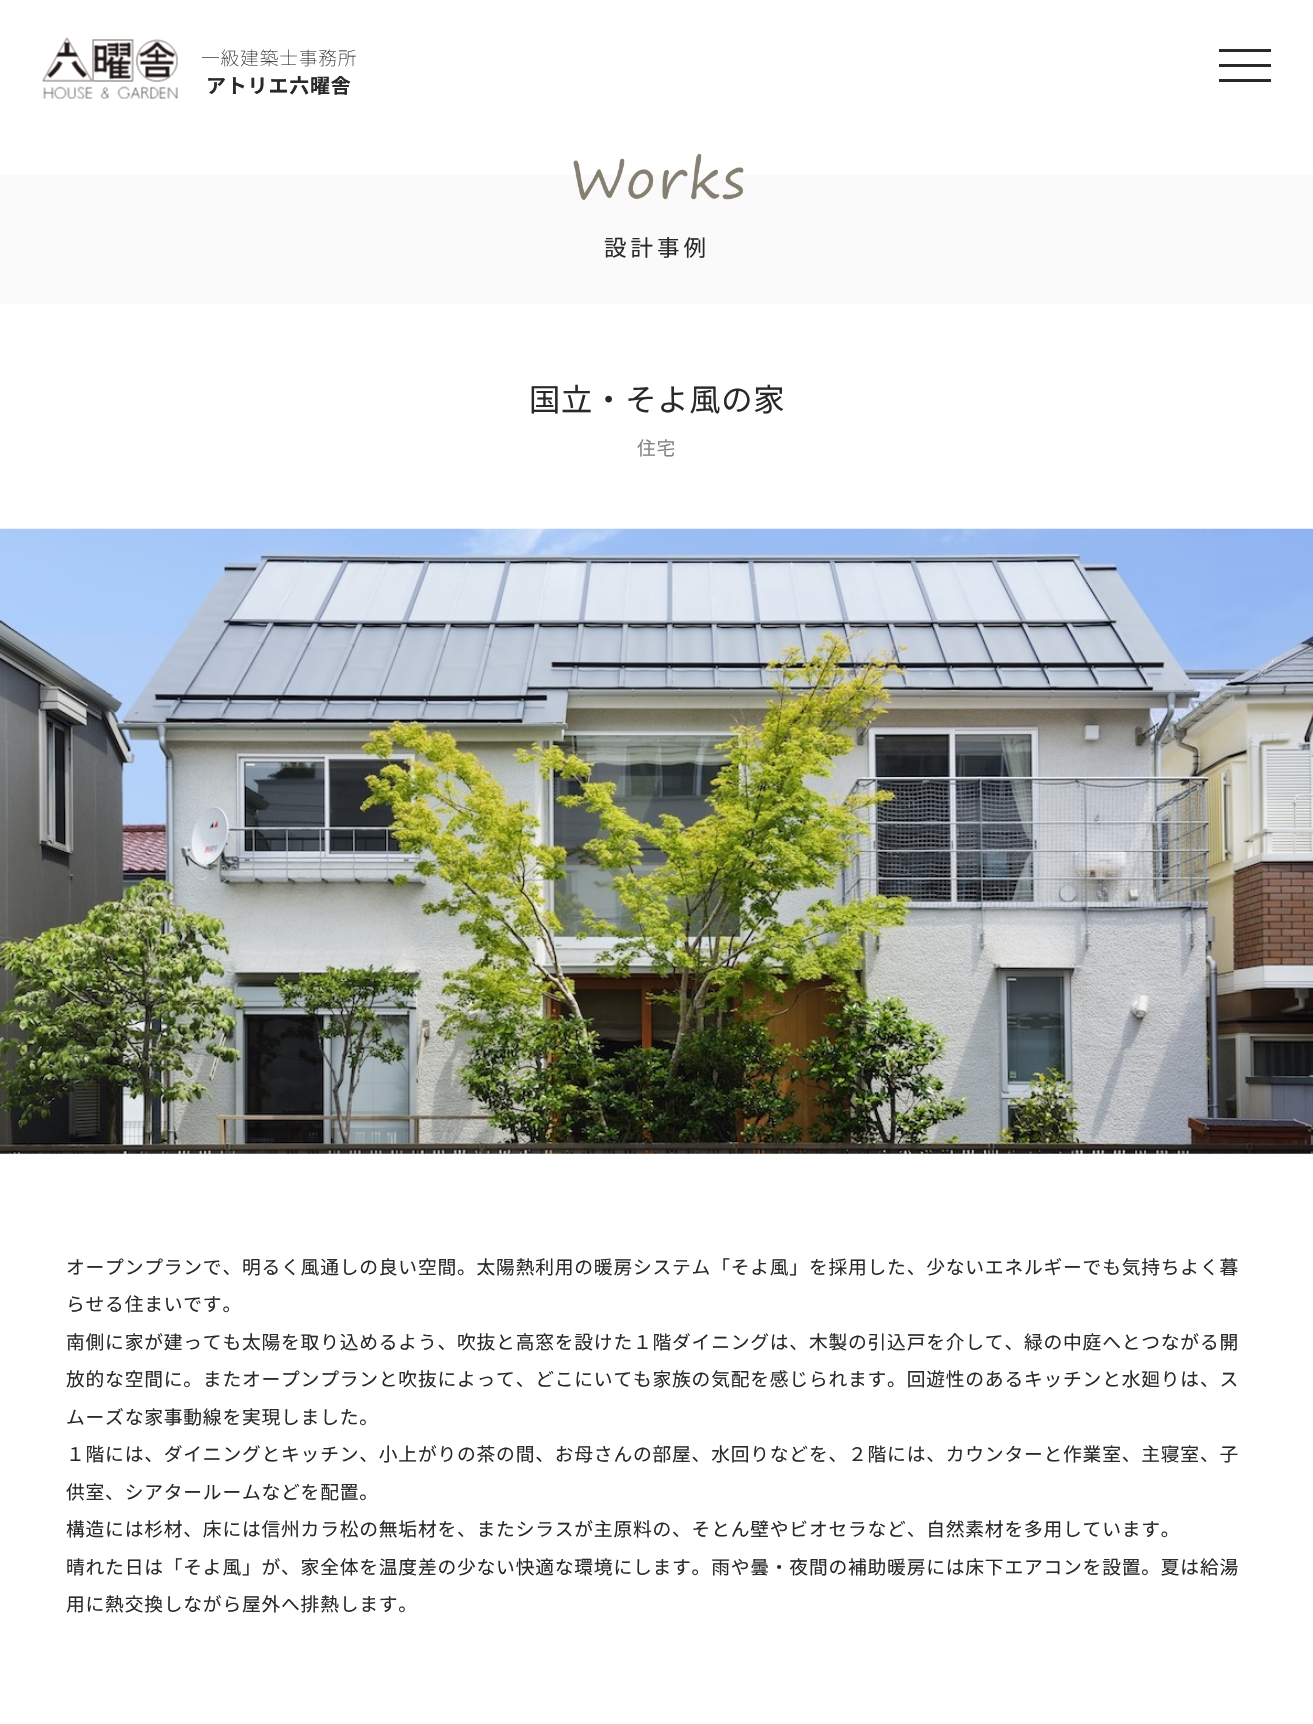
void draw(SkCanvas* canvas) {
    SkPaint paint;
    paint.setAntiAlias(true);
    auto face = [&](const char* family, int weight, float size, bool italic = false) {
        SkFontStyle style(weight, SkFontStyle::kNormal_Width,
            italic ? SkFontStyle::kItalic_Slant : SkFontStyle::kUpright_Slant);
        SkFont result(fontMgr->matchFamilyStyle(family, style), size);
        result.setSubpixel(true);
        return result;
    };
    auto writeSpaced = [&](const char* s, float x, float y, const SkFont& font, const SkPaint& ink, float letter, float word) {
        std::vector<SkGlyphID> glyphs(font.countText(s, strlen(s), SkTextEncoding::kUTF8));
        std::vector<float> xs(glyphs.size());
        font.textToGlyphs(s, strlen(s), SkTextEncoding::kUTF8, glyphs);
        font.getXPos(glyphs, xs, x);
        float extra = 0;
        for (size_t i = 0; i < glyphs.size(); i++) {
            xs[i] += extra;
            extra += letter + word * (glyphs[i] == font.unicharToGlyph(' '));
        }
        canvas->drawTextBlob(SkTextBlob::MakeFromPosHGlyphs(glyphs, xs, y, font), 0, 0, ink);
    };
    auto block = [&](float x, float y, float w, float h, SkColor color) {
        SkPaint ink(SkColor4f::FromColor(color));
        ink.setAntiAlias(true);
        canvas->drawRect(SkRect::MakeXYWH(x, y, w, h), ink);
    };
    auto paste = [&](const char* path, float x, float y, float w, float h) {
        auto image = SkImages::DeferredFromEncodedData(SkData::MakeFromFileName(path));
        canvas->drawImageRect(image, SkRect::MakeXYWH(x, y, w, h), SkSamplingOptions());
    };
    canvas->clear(SK_ColorWHITE);
    paste("pic1.png", 42, 37, 136, 62);
    auto kFont1 = face("Noto Sans JP", 100, 18.75f);
    paint.setColor(SkColorSetRGB(41, 41, 41));
    writeSpaced("一級建築士事務所", 201, 65, kFont1, paint, 0.8f, 0);
    auto kFont2 = face("Noto Sans JP", 700, 20);
    writeSpaced("アトリエ六曜舎", 206, 93, kFont2, paint, 0.8f, 0);
    block(1219, 49, 52, 3, SkColorSetRGB(41, 41, 41));
    block(1219, 64, 52, 3, SkColorSetRGB(41, 41, 41));
    block(1219, 79, 52, 3, SkColorSetRGB(41, 41, 41));
    block(0, 175, 1313, 129, SkColorSetRGB(250, 250, 250));
    paste("pic2.png", 573, 153, 171, 47);
    auto kFont3 = face("Noto Sans JP", 400, 22.5f);
    writeSpaced("設計事例", 604, 256, kFont3, paint, 4, 0);
    auto kFont4 = face("Noto Sans JP", 400, 31.25f);
    writeSpaced("国立・そよ風の家", 529, 411, kFont4, paint, 0.8f, 0);
    auto kFont5 = face("Noto Sans JP", 400, 18.75f);
    paint.setColor(SkColorSetRGB(131, 131, 131));
    writeSpaced("住宅", 637, 455, kFont5, paint, 0.8f, 0);
    paste("pic3.png", 0, 528, 1313, 626);
    paint.setColor(SkColorSetRGB(41, 41, 41));
    writeSpaced("オープンプランで、明るく風通しの良い空間。太陽熱利用の暖房システム「そよ風」を採用した、少ないエネルギーでも気持ちよく暮", 66, 1274, kFont5, paint, 0.8f, 0);
    writeSpaced("らせる住まいです。", 66, 1311, kFont5, paint, 0.8f, 0);
    writeSpaced("南側に家が建っても太陽を取り込めるよう、吹抜と高窓を設けた１階ダイニングは、木製の引込戸を介して、緑の中庭へとつながる開", 66, 1349, kFont5, paint, 0.8f, 0);
    writeSpaced("放的な空間に。またオープンプランと吹抜によって、どこにいても家族の気配を感じられます。回遊性のあるキッチンと水廻りは、ス", 66, 1386, kFont5, paint, 0.8f, 0);
    writeSpaced("ムーズな家事動線を実現しました。", 66, 1424, kFont5, paint, 0.8f, 0);
    writeSpaced("１階には、ダイニングとキッチン、小上がりの茶の間、お母さんの部屋、水回りなどを、２階には、カウンターと作業室、主寝室、子", 66, 1461, kFont5, paint, 0.8f, 0);
    writeSpaced("供室、シアタールームなどを配置。", 66, 1499, kFont5, paint, 0.8f, 0);
    writeSpaced("構造には杉材、床には信州カラ松の無垢材を、またシラスが主原料の、そとん壁やビオセラなど、自然素材を多用しています。", 66, 1536, kFont5, paint, 0.8f, 0);
    writeSpaced("晴れた日は「そよ風」が、家全体を温度差の少ない快適な環境にします。雨や曇・夜間の補助暖房には床下エアコンを設置。夏は給湯", 66, 1574, kFont5, paint, 0.8f, 0);
    writeSpaced("用に熱交換しながら屋外へ排熱します。", 66, 1611, kFont5, paint, 0.8f, 0);
}
